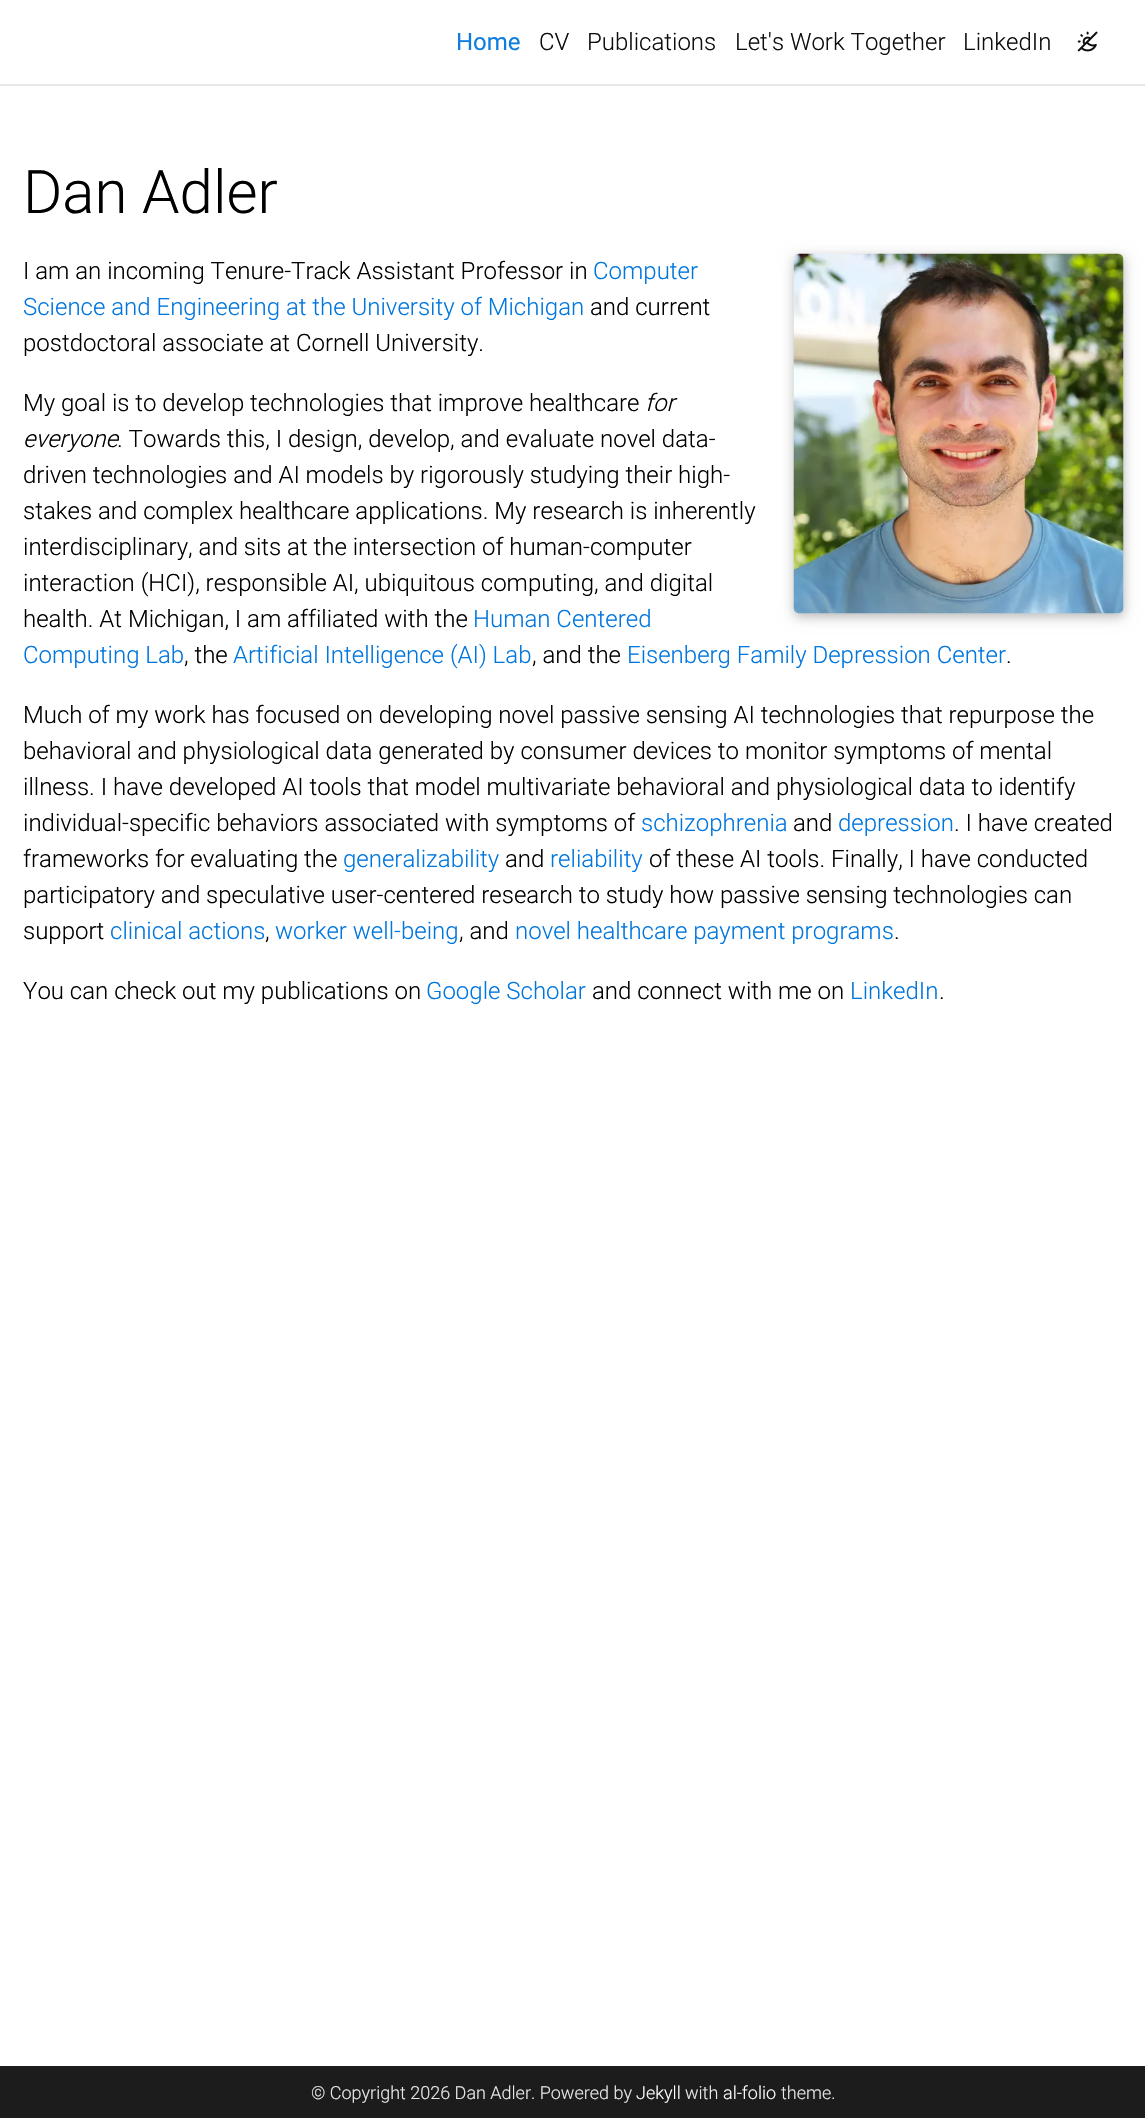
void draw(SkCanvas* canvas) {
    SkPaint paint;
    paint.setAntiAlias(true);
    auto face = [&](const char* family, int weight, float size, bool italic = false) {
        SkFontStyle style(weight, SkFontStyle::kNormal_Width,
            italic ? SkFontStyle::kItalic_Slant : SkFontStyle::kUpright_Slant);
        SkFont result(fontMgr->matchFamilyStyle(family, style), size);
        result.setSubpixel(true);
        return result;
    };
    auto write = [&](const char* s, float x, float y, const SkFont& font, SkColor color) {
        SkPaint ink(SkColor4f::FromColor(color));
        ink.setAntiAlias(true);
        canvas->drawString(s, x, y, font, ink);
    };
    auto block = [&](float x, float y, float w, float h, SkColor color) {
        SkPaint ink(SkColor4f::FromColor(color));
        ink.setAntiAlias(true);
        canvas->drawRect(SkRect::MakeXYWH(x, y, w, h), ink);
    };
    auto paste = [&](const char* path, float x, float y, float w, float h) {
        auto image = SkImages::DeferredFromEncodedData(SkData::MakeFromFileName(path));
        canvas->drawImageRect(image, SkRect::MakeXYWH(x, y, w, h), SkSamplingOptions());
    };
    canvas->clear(SK_ColorWHITE);
    block(0, 84, 1145, 2, SkColorSetRGB(231, 231, 231));
    auto kFont1 = face("Roboto", 400, 24);
    write("Home", 456, 50, kFont1, SkColorSetRGB(13, 125, 225));
    auto kFont2 = face("Roboto", 300, 24);
    write("CV", 539, 50, kFont2, SkColorSetRGB(13, 13, 13));
    write("Publications", 587, 50, kFont2, SkColorSetRGB(13, 13, 13));
    write("Let's Work Together", 735, 50, kFont2, SkColorSetRGB(13, 13, 13));
    write("LinkedIn", 963, 50, kFont2, SkColorSetRGB(13, 13, 13));
    paste("pic1.png", 1077, 31, 21, 21);
    auto kFont3 = face("Roboto", 300, 60);
    write("Dan Adler", 23, 213, kFont3, SK_ColorBLACK);
    paint.setColor(SkColorSetARGB(31, 0, 0, 0));
    paint.setMaskFilter(SkMaskFilter::MakeBlur(kNormal_SkBlurStyle, 7.5f));
    canvas->drawRoundRect(SkRect::MakeXYWH(794, 257, 330, 360), 6, 6, paint);
    paint.setMaskFilter(nullptr);
    paint.setColor(SkColorSetARGB(41, 0, 0, 0));
    paint.setMaskFilter(SkMaskFilter::MakeBlur(kNormal_SkBlurStyle, 4));
    canvas->drawRoundRect(SkRect::MakeXYWH(794, 257, 330, 360), 6, 6, paint);
    paint.setMaskFilter(nullptr);
    paste("pic2.png", 793, 253, 331, 361);
    write("I am an incoming Tenure-Track Assistant Professor in", 23, 279, kFont2, SK_ColorBLACK);
    write("Computer", 593, 279, kFont2, SkColorSetRGB(0, 118, 223));
    write("Science and Engineering at the University of Michigan", 23, 315, kFont2, SkColorSetRGB(0, 118, 223));
    write("and current", 590, 315, kFont2, SK_ColorBLACK);
    write("postdoctoral associate at Cornell University.", 23, 351, kFont2, SK_ColorBLACK);
    write("My goal is to develop technologies that improve healthcare", 23, 411, kFont2, SK_ColorBLACK);
    auto kFont4 = face("Roboto", 300, 24, true);
    write("for", 645, 411, kFont4, SK_ColorBLACK);
    write("everyone", 23, 447, kFont4, SK_ColorBLACK);
    write(". Towards this, I design, develop, and evaluate novel data-", 117, 447, kFont2, SK_ColorBLACK);
    write("driven technologies and AI models by rigorously studying their high-", 23, 483, kFont2, SK_ColorBLACK);
    write("stakes and complex healthcare applications. My research is inherently", 23, 519, kFont2, SK_ColorBLACK);
    write("interdisciplinary, and sits at the intersection of human-computer", 23, 555, kFont2, SK_ColorBLACK);
    write("interaction (HCI), responsible AI, ubiquitous computing, and digital", 23, 591, kFont2, SK_ColorBLACK);
    write("health. At Michigan, I am affiliated with the", 23, 627, kFont2, SK_ColorBLACK);
    write("Human Centered", 473, 627, kFont2, SkColorSetRGB(0, 118, 223));
    write("Computing Lab", 23, 663, kFont2, SkColorSetRGB(0, 118, 223));
    write(", the", 184, 663, kFont2, SK_ColorBLACK);
    write("Artificial Intelligence (AI) Lab", 233, 663, kFont2, SkColorSetRGB(0, 118, 223));
    write(", and the", 532, 663, kFont2, SK_ColorBLACK);
    write("Eisenberg Family Depression Center", 627, 663, kFont2, SkColorSetRGB(0, 118, 223));
    write(".", 1006, 663, kFont2, SK_ColorBLACK);
    write("Much of my work has focused on developing novel passive sensing AI technologies that repurpose the", 23, 723, kFont2, SK_ColorBLACK);
    write("behavioral and physiological data generated by consumer devices to monitor symptoms of mental", 23, 759, kFont2, SK_ColorBLACK);
    write("illness. I have developed AI tools that model multivariate behavioral and physiological data to identify", 23, 795, kFont2, SK_ColorBLACK);
    write("individual-specific behaviors associated with symptoms of", 23, 831, kFont2, SK_ColorBLACK);
    write("schizophrenia", 641, 831, kFont2, SkColorSetRGB(0, 118, 223));
    write("and", 793, 831, kFont2, SK_ColorBLACK);
    write("depression", 838, 831, kFont2, SkColorSetRGB(0, 118, 223));
    write(". I have created", 954, 831, kFont2, SK_ColorBLACK);
    write("frameworks for evaluating the", 23, 867, kFont2, SK_ColorBLACK);
    write("generalizability", 343, 867, kFont2, SkColorSetRGB(0, 118, 223));
    write("and", 505, 867, kFont2, SK_ColorBLACK);
    write("reliability", 550, 867, kFont2, SkColorSetRGB(0, 118, 223));
    write("of these AI tools. Finally, I have conducted", 649, 867, kFont2, SK_ColorBLACK);
    write("participatory and speculative user-centered research to study how passive sensing technologies can", 23, 903, kFont2, SK_ColorBLACK);
    write("support", 23, 939, kFont2, SK_ColorBLACK);
    write("clinical actions", 110, 939, kFont2, SkColorSetRGB(0, 118, 223));
    write(",", 265, 939, kFont2, SK_ColorBLACK);
    write("worker well-being", 275, 939, kFont2, SkColorSetRGB(0, 118, 223));
    write(", and", 459, 939, kFont2, SK_ColorBLACK);
    write("novel healthcare payment programs", 515, 939, kFont2, SkColorSetRGB(0, 118, 223));
    write(".", 894, 939, kFont2, SK_ColorBLACK);
    write("You can check out my publications on", 23, 999, kFont2, SK_ColorBLACK);
    write("Google Scholar", 426, 999, kFont2, SkColorSetRGB(0, 118, 223));
    write("and connect with me on", 592, 999, kFont2, SK_ColorBLACK);
    write("LinkedIn", 850, 999, kFont2, SkColorSetRGB(0, 118, 223));
    write(".", 939, 999, kFont2, SK_ColorBLACK);
    block(0, 2066, 1145, 52, SkColorSetRGB(28, 28, 29));
    auto kFont5 = face("Roboto", 300, 18);
    write("© Copyright 2026 Dan Adler. Powered by", 311, 2099, kFont5, SkColorSetRGB(232, 232, 232));
    write("Jekyll", 636, 2099, kFont5, SK_ColorWHITE);
    write("with", 685, 2099, kFont5, SkColorSetRGB(232, 232, 232));
    write("al-folio", 723, 2099, kFont5, SK_ColorWHITE);
    write("theme.", 781, 2099, kFont5, SkColorSetRGB(232, 232, 232));
}
